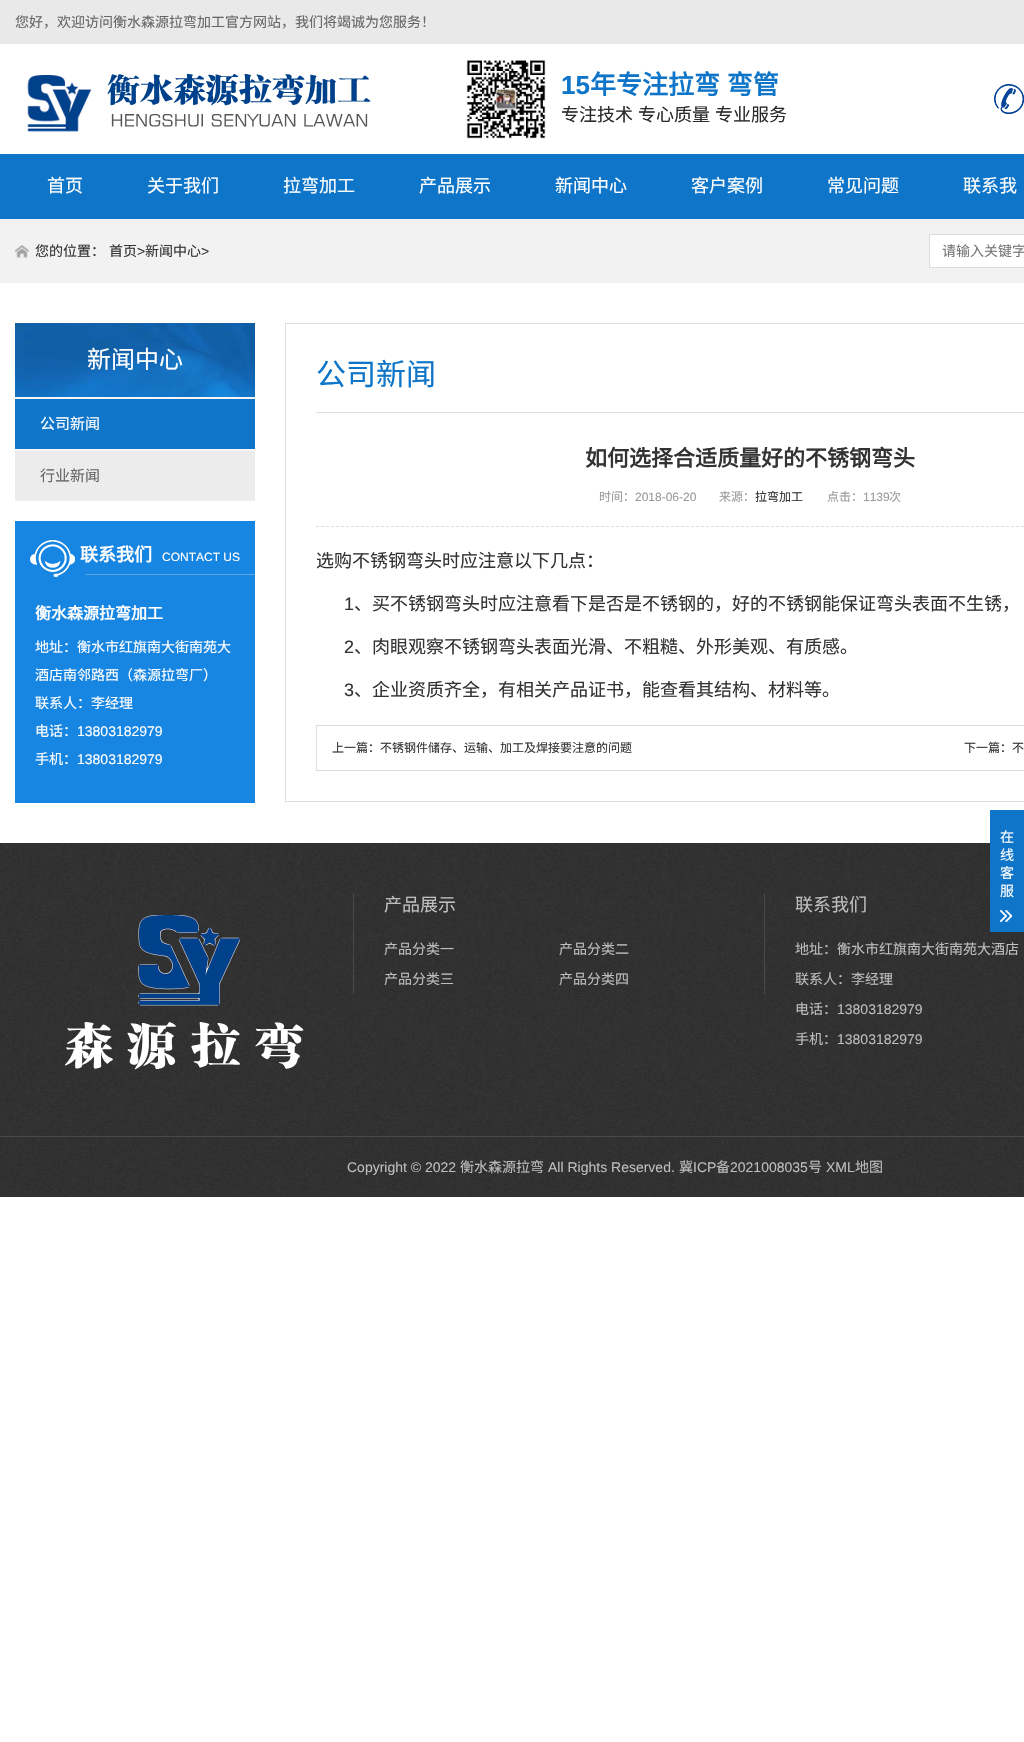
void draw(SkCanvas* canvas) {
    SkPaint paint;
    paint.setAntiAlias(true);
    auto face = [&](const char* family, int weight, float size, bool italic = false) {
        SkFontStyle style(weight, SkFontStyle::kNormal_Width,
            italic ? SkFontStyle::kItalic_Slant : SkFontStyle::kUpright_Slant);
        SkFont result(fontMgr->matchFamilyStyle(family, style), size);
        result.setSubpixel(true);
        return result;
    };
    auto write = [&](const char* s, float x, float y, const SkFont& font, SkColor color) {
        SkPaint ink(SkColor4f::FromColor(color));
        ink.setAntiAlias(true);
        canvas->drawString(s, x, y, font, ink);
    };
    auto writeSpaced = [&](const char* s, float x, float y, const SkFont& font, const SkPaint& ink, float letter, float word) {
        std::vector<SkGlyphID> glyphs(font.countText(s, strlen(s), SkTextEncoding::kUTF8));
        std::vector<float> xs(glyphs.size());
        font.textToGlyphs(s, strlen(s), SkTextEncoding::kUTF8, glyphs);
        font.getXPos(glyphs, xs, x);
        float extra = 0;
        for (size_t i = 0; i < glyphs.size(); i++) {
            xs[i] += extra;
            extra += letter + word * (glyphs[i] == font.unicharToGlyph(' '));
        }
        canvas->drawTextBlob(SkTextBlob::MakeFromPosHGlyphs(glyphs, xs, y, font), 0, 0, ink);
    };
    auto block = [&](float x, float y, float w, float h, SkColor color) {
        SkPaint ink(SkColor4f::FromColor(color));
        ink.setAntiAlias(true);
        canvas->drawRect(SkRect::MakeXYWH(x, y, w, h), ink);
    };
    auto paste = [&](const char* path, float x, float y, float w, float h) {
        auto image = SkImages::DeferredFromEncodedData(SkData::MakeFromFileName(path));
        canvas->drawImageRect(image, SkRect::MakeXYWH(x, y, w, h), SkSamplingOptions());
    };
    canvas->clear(SK_ColorWHITE);
    block(0, 0, 1024, 44, SkColorSetRGB(233, 233, 233));
    auto kFont1 = face("Noto Sans CJK SC", 400, 14);
    write("您好，欢迎访问衡水森源拉弯加工官方网站，我们将竭诚为您服务！", 15, 27, kFont1, SkColorSetRGB(102, 102, 102));
    paste("pic1.png", 27, 74, 344, 58);
    paste("pic2.png", 466, 60, 80, 79);
    auto kFont2 = face("Liberation Sans", 700, 26);
    write("15", 561, 94, kFont2, SkColorSetRGB(14, 117, 200));
    auto kFont3 = face("Noto Sans CJK SC", 700, 26);
    paint.setColor(SkColorSetRGB(14, 117, 200));
    writeSpaced("年专注拉弯 弯管", 590, 94, kFont3, paint, 0, 1);
    auto kFont4 = face("Noto Sans CJK SC", 400, 18);
    paint.setColor(SkColorSetRGB(43, 43, 43));
    writeSpaced("专注技术 专心质量 专业服务", 561, 121, kFont4, paint, 0, 1);
    paste("pic3.png", 994, 84, 30, 30);
    block(0, 154, 1024, 65, SkColorSetRGB(14, 117, 200));
    write("首页", 47, 192, kFont4, SK_ColorWHITE);
    write("关于我们", 147, 192, kFont4, SK_ColorWHITE);
    write("拉弯加工", 283, 192, kFont4, SK_ColorWHITE);
    write("产品展示", 419, 192, kFont4, SK_ColorWHITE);
    write("新闻中心", 555, 192, kFont4, SK_ColorWHITE);
    write("客户案例", 691, 192, kFont4, SK_ColorWHITE);
    write("常见问题", 827, 192, kFont4, SK_ColorWHITE);
    write("联系我", 963, 192, kFont4, SK_ColorWHITE);
    block(0, 219, 1024, 64, SkColorSetRGB(242, 242, 242));
    paste("pic4.png", 15, 245, 14, 13);
    write("您的位置：", 35, 256, kFont1, SkColorSetRGB(51, 51, 51));
    write("首页", 109, 256, kFont1, SkColorSetRGB(51, 51, 51));
    auto kFont5 = face("Liberation Sans", 400, 14);
    write(">", 137, 256, kFont5, SkColorSetRGB(51, 51, 51));
    write("新闻中心", 145, 256, kFont1, SkColorSetRGB(51, 51, 51));
    write(">", 201, 256, kFont5, SkColorSetRGB(51, 51, 51));
    paint.setColor(SK_ColorWHITE);
    canvas->drawRect(SkRect::MakeXYWH(929.5f, 234.5f, 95, 33), paint);
    paint.setStyle(SkPaint::kStroke_Style);
    paint.setStrokeWidth(1);
    paint.setColor(SkColorSetRGB(221, 221, 221));
    canvas->drawRect(SkRect::MakeXYWH(929.5f, 234.5f, 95, 33), paint);
    write("请输入关键字", 942, 256, kFont1, SkColorSetRGB(117, 117, 117));
    block(15, 397, 240, 54, SkColorSetRGB(246, 246, 246));
    paste("pic5.png", 15, 323, 240, 74);
    auto kFont6 = face("Noto Sans CJK SC", 400, 24);
    write("新闻中心", 87, 368, kFont6, SK_ColorWHITE);
    block(15, 399, 240, 50, SkColorSetRGB(14, 117, 200));
    auto kFont7 = face("Noto Sans CJK SC", 400, 15);
    write("公司新闻", 40, 429, kFont7, SK_ColorWHITE);
    block(15, 451, 240, 50, SkColorSetRGB(236, 236, 236));
    write("行业新闻", 40, 481, kFont7, SkColorSetRGB(102, 102, 102));
    block(15, 521, 240, 282, SkColorSetRGB(23, 133, 226));
    paste("pic6.png", 30, 540, 225, 37);
    auto kFont8 = face("Noto Sans CJK SC", 700, 18);
    write("联系我们", 80, 561, kFont8, SK_ColorWHITE);
    auto kFont9 = face("Liberation Sans", 400, 12);
    write("CONTACT US", 162, 561, kFont9, SK_ColorWHITE);
    auto kFont10 = face("Noto Sans CJK SC", 700, 16);
    write("衡水森源拉弯加工", 35, 619, kFont10, SK_ColorWHITE);
    write("地址：衡水市红旗南大街南苑大", 35, 652, kFont1, SK_ColorWHITE);
    write("酒店南邻路西（森源拉弯厂）", 35, 680, kFont1, SK_ColorWHITE);
    write("联系人：李经理", 35, 708, kFont1, SK_ColorWHITE);
    write("电话：", 35, 736, kFont1, SK_ColorWHITE);
    write("13803182979", 77, 736, kFont5, SK_ColorWHITE);
    write("手机：", 35, 764, kFont1, SK_ColorWHITE);
    write("13803182979", 77, 764, kFont5, SK_ColorWHITE);
    canvas->drawRect(SkRect::MakeXYWH(285.5f, 323.5f, 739, 478), paint);
    block(316, 412, 708, 1, SkColorSetRGB(221, 221, 221));
    auto kFont11 = face("Noto Sans CJK SC", 400, 30);
    write("公司新闻", 316, 385, kFont11, SkColorSetRGB(14, 117, 200));
    paint.setPathEffect(SkDashPathEffect::Make({{3, 2}}, 0));
    canvas->drawPath(SkPathBuilder().moveTo(316, 526.5f).lineTo(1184, 526.5f).detach(), paint);
    paint.setPathEffect(nullptr);
    auto kFont12 = face("Noto Sans CJK SC", 700, 22);
    write("如何选择合适质量好的不锈钢弯头", 585, 466, kFont12, SkColorSetRGB(51, 51, 51));
    auto kFont13 = face("Noto Sans CJK SC", 400, 12);
    write("时间：", 599, 501, kFont13, SkColorSetRGB(153, 153, 153));
    write("2018-06-20", 635, 501, kFont9, SkColorSetRGB(153, 153, 153));
    write("来源：", 719, 501, kFont13, SkColorSetRGB(153, 153, 153));
    write("拉弯加工", 755, 501, kFont13, SkColorSetRGB(51, 51, 51));
    write("点击：", 827, 501, kFont13, SkColorSetRGB(153, 153, 153));
    write("1139", 863, 501, kFont9, SkColorSetRGB(153, 153, 153));
    write("次", 889, 501, kFont13, SkColorSetRGB(153, 153, 153));
    write("选购不锈钢弯头时应注意以下几点：", 316, 567, kFont4, SkColorSetRGB(51, 51, 51));
    auto kFont14 = face("Liberation Sans", 400, 18);
    write("1", 344, 610, kFont14, SkColorSetRGB(51, 51, 51));
    write("、买不锈钢弯头时应注意看下是否是不锈钢的，好的不锈钢能保证弯头表面不生锈，", 354, 610, kFont4, SkColorSetRGB(51, 51, 51));
    write("2", 344, 653, kFont14, SkColorSetRGB(51, 51, 51));
    write("、肉眼观察不锈钢弯头表面光滑、不粗糙、外形美观、有质感。", 354, 653, kFont4, SkColorSetRGB(51, 51, 51));
    write("3", 344, 696, kFont14, SkColorSetRGB(51, 51, 51));
    write("、企业资质齐全，有相关产品证书，能查看其结构、材料等。", 354, 696, kFont4, SkColorSetRGB(51, 51, 51));
    canvas->drawRect(SkRect::MakeXYWH(316.5f, 725.5f, 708, 45), paint);
    write("上一篇：不锈钢件储存、运输、加工及焊接要注意的问题", 332, 752, kFont13, SkColorSetRGB(51, 51, 51));
    write("下一篇：不", 964, 752, kFont13, SkColorSetRGB(51, 51, 51));
    paste("pic8.png", 0, 843, 1024, 354);
    block(990, 810, 34, 122, SkColorSetRGB(14, 117, 200));
    write("在", 1000, 842, kFont1, SK_ColorWHITE);
    write("线", 1000, 860, kFont1, SK_ColorWHITE);
    write("客", 1000, 878, kFont1, SK_ColorWHITE);
    write("服", 1000, 896, kFont1, SK_ColorWHITE);
    paste("pic7.png", 1000, 910, 12, 12);
    paste("pic9.png", 65, 915, 239, 155);
    block(764, 893, 1, 101, SkColorSetRGB(74, 74, 74));
    block(353, 893, 1, 101, SkColorSetRGB(74, 74, 74));
    write("产品展示", 384, 911, kFont4, SkColorSetRGB(190, 190, 190));
    write("产品分类一", 384, 954, kFont1, SkColorSetRGB(190, 190, 190));
    write("产品分类二", 559, 954, kFont1, SkColorSetRGB(190, 190, 190));
    write("产品分类三", 384, 984, kFont1, SkColorSetRGB(190, 190, 190));
    write("产品分类四", 559, 984, kFont1, SkColorSetRGB(190, 190, 190));
    write("联系我们", 795, 911, kFont4, SkColorSetRGB(190, 190, 190));
    write("地址：衡水市红旗南大街南苑大酒店", 795, 954, kFont1, SkColorSetRGB(190, 190, 190));
    write("联系人：李经理", 795, 984, kFont1, SkColorSetRGB(190, 190, 190));
    write("电话：", 795, 1014, kFont1, SkColorSetRGB(190, 190, 190));
    write("13803182979", 837, 1014, kFont5, SkColorSetRGB(190, 190, 190));
    write("手机：", 795, 1044, kFont1, SkColorSetRGB(190, 190, 190));
    write("13803182979", 837, 1044, kFont5, SkColorSetRGB(190, 190, 190));
    block(0, 1136, 1024, 1, SkColorSetRGB(73, 73, 73));
    write("Copyright © 2022", 347, 1172, kFont5, SkColorSetRGB(190, 190, 190));
    write("衡水森源拉弯", 460, 1172, kFont1, SkColorSetRGB(190, 190, 190));
    write("All Rights Reserved.", 548, 1172, kFont5, SkColorSetRGB(190, 190, 190));
    write("冀", 679, 1172, kFont1, SkColorSetRGB(190, 190, 190));
    write("ICP", 693, 1172, kFont5, SkColorSetRGB(190, 190, 190));
    write("备", 716, 1172, kFont1, SkColorSetRGB(190, 190, 190));
    write("2021008035", 730, 1172, kFont5, SkColorSetRGB(190, 190, 190));
    write("号", 808, 1172, kFont1, SkColorSetRGB(190, 190, 190));
    write("XML", 826, 1172, kFont5, SkColorSetRGB(190, 190, 190));
    write("地图", 855, 1172, kFont1, SkColorSetRGB(190, 190, 190));
}
